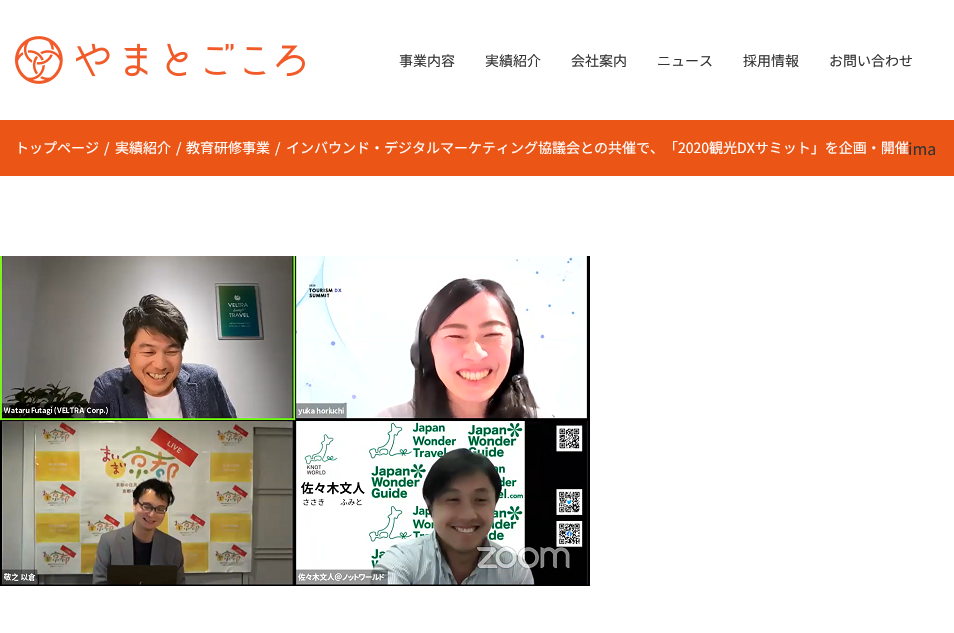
void draw(SkCanvas* canvas) {
    SkPaint paint;
    paint.setAntiAlias(true);
    auto face = [&](const char* family, int weight, float size, bool italic = false) {
        SkFontStyle style(weight, SkFontStyle::kNormal_Width,
            italic ? SkFontStyle::kItalic_Slant : SkFontStyle::kUpright_Slant);
        SkFont result(fontMgr->matchFamilyStyle(family, style), size);
        result.setSubpixel(true);
        return result;
    };
    auto write = [&](const char* s, float x, float y, const SkFont& font, SkColor color) {
        SkPaint ink(SkColor4f::FromColor(color));
        ink.setAntiAlias(true);
        canvas->drawString(s, x, y, font, ink);
    };
    auto block = [&](float x, float y, float w, float h, SkColor color) {
        SkPaint ink(SkColor4f::FromColor(color));
        ink.setAntiAlias(true);
        canvas->drawRect(SkRect::MakeXYWH(x, y, w, h), ink);
    };
    auto paste = [&](const char* path, float x, float y, float w, float h) {
        auto image = SkImages::DeferredFromEncodedData(SkData::MakeFromFileName(path));
        canvas->drawImageRect(image, SkRect::MakeXYWH(x, y, w, h), SkSamplingOptions());
    };
    canvas->clear(SK_ColorWHITE);
    paste("pic1.png", 15, 36, 290, 48);
    auto kFont1 = face("Noto Sans JP", 400, 14);
    write("事業内容", 399, 66, kFont1, SkColorSetRGB(51, 51, 51));
    write("実績紹介", 485, 66, kFont1, SkColorSetRGB(51, 51, 51));
    write("会社案内", 571, 66, kFont1, SkColorSetRGB(51, 51, 51));
    write("ニュース", 657, 66, kFont1, SkColorSetRGB(51, 51, 51));
    write("採用情報", 743, 66, kFont1, SkColorSetRGB(51, 51, 51));
    write("お問い合わせ", 829, 66, kFont1, SkColorSetRGB(51, 51, 51));
    block(0, 120, 954, 56, SkColorSetRGB(235, 85, 22));
    write("トップページ", 15, 153, kFont1, SK_ColorWHITE);
    write("/", 104, 153, kFont1, SK_ColorWHITE);
    write("実績紹介", 115, 153, kFont1, SK_ColorWHITE);
    write("/", 176, 153, kFont1, SK_ColorWHITE);
    write("教育研修事業", 186, 153, kFont1, SK_ColorWHITE);
    write("/", 275, 153, kFont1, SK_ColorWHITE);
    write("インバウンド・デジタルマーケティング協議会との共催で、「2020観光DXサミット」を企画・開催", 286, 153, kFont1, SK_ColorWHITE);
    auto kFont2 = face("Noto Sans JP", 400, 16);
    write("ima", 908, 155, kFont2, SkColorSetRGB(51, 51, 51));
    paste("pic2.png", 0, 256, 590, 330);
}
